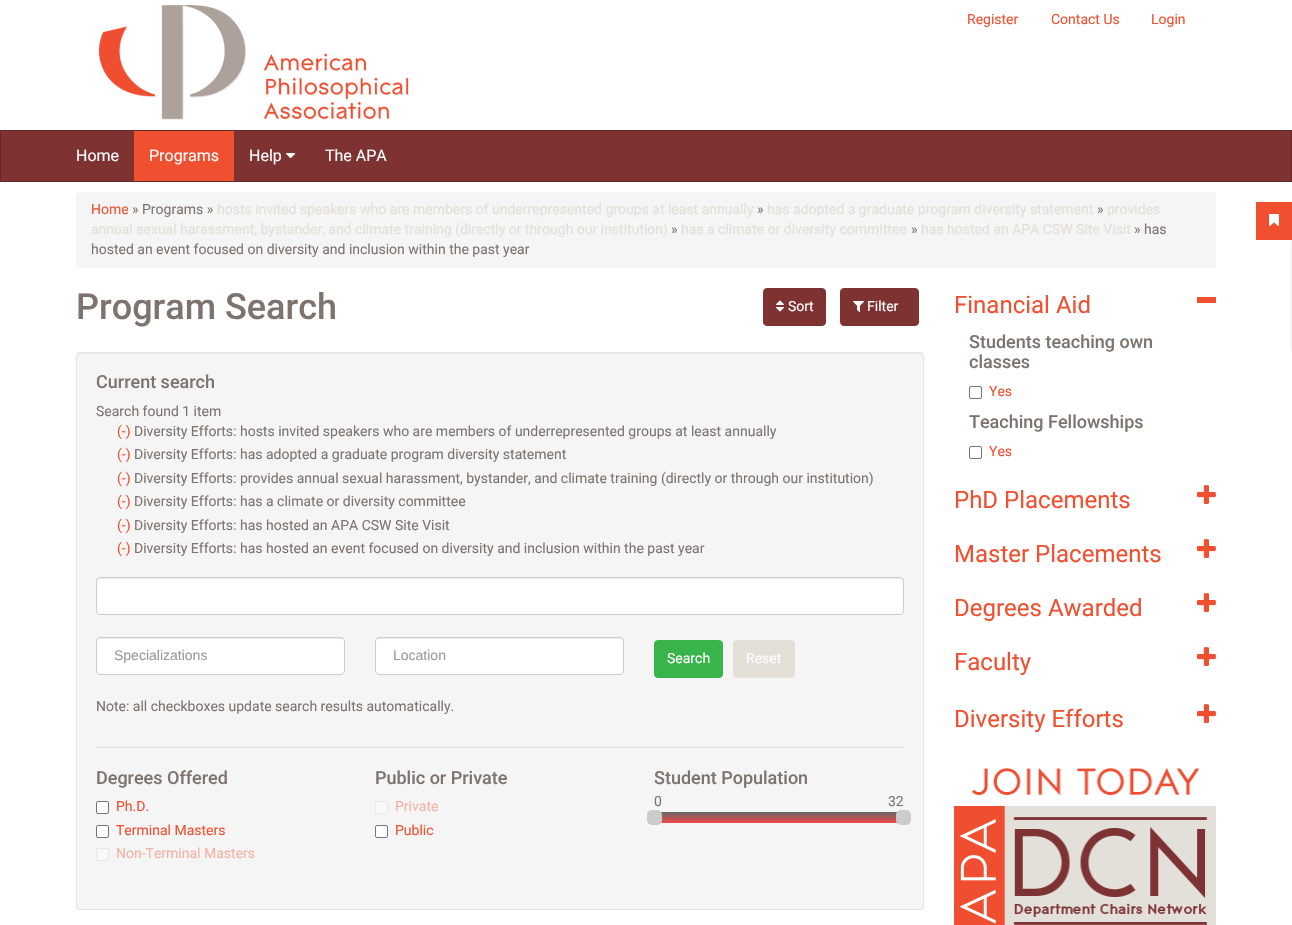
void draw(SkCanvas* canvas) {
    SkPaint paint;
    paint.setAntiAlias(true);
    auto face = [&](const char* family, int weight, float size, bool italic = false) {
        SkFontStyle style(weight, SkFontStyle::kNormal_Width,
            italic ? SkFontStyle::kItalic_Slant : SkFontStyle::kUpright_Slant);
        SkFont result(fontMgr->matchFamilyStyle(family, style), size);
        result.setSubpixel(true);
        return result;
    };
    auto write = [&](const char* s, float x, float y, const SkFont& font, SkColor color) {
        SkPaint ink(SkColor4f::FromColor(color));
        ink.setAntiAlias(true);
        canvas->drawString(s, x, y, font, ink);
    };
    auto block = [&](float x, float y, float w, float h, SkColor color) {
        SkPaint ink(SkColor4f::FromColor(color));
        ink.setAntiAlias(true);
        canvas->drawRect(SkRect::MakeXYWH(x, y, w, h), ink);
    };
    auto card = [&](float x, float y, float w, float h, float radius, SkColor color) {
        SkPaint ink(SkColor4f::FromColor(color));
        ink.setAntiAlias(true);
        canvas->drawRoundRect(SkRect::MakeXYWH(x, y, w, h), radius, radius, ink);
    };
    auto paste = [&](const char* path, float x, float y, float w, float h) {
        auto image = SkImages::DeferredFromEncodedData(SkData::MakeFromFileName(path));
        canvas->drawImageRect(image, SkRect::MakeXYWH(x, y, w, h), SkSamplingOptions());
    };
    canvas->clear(SK_ColorWHITE);
    paste("pic1.png", 99, 5, 310, 115);
    auto kFont1 = face("Roboto", 400, 14);
    write("Register", 967, 24, kFont1, SkColorSetRGB(240, 80, 48));
    write("Contact Us", 1051, 24, kFont1, SkColorSetRGB(240, 80, 48));
    write("Login", 1151, 24, kFont1, SkColorSetRGB(240, 80, 48));
    paint.setColor(SkColorSetRGB(126, 50, 50));
    canvas->drawRect(SkRect::MakeXYWH(0.5f, 130.5f, 1291, 51), paint);
    paint.setStyle(SkPaint::kStroke_Style);
    paint.setStrokeWidth(1);
    paint.setColor(SkColorSetRGB(102, 41, 41));
    canvas->drawRect(SkRect::MakeXYWH(0.5f, 130.5f, 1291, 51), paint);
    auto kFont2 = face("Roboto", 400, 16);
    write("Home", 76, 161, kFont2, SK_ColorWHITE);
    block(134, 131, 100, 50, SkColorSetRGB(240, 80, 48));
    write("Programs", 149, 161, kFont2, SK_ColorWHITE);
    write("Help", 249, 161, kFont2, SK_ColorWHITE);
    paste("pic2.png", 286, 153, 10, 6);
    write("The APA", 325, 161, kFont2, SK_ColorWHITE);
    card(76, 192, 1140, 76, 4, SkColorSetRGB(245, 245, 245));
    write("Home", 91, 214, kFont1, SkColorSetRGB(240, 80, 48));
    write("» Programs »", 132, 214, kFont1, SkColorSetRGB(126, 116, 111));
    write("hosts invited speakers who are members of underrepresented groups at least annually", 217, 214, kFont1, SkColorSetRGB(228, 224, 216));
    write("»", 757, 214, kFont1, SkColorSetRGB(126, 116, 111));
    write("has adopted a graduate program diversity statement", 767, 214, kFont1, SkColorSetRGB(228, 224, 216));
    write("»", 1097, 214, kFont1, SkColorSetRGB(126, 116, 111));
    write("provides", 1107, 214, kFont1, SkColorSetRGB(228, 224, 216));
    write("annual sexual harassment, bystander, and climate training (directly or through our institution)", 91, 234, kFont1, SkColorSetRGB(228, 224, 216));
    write("»", 671, 234, kFont1, SkColorSetRGB(126, 116, 111));
    write("has a climate or diversity committee", 681, 234, kFont1, SkColorSetRGB(228, 224, 216));
    write("»", 911, 234, kFont1, SkColorSetRGB(126, 116, 111));
    write("has hosted an APA CSW Site Visit", 921, 234, kFont1, SkColorSetRGB(228, 224, 216));
    write("» has", 1134, 234, kFont1, SkColorSetRGB(126, 116, 111));
    write("hosted an event focused on diversity and inclusion within the past year", 91, 254, kFont1, SkColorSetRGB(126, 116, 111));
    auto kFont3 = face("Roboto", 500, 36);
    write("Program Search", 76, 319, kFont3, SkColorSetRGB(126, 116, 111));
    paint.setStyle(SkPaint::kFill_Style);
    paint.setColor(SkColorSetRGB(126, 50, 50));
    canvas->drawRoundRect(SkRect::MakeXYWH(763.5f, 288.5f, 62, 37), 3.5f, 3.5f, paint);
    paint.setStyle(SkPaint::kStroke_Style);
    canvas->drawRoundRect(SkRect::MakeXYWH(763.5f, 288.5f, 62, 37), 3.5f, 3.5f, paint);
    paste("pic3.png", 776, 300, 8, 12);
    write("Sort", 788, 311, kFont1, SK_ColorWHITE);
    paint.setStyle(SkPaint::kFill_Style);
    canvas->drawRoundRect(SkRect::MakeXYWH(840.5f, 288.5f, 78, 37), 3.5f, 3.5f, paint);
    paint.setStyle(SkPaint::kStroke_Style);
    canvas->drawRoundRect(SkRect::MakeXYWH(840.5f, 288.5f, 78, 37), 3.5f, 3.5f, paint);
    paste("pic4.png", 853, 301, 11, 11);
    write("Filter", 867, 311, kFont1, SK_ColorWHITE);
    card(76, 352, 848, 558, 4, SkColorSetRGB(245, 245, 245));
    paint.setStyle(SkPaint::kFill_Style);
    paint.setColor(SkColorSetRGB(233, 233, 233));
    canvas->drawPath(SkPathBuilder().moveTo(80, 354).lineTo(920, 354).cubicTo(922, 354, 923, 355, 923, 357).cubicTo(923, 355, 922, 353, 920, 353).lineTo(80, 353).cubicTo(78, 353, 77, 355, 77, 357).cubicTo(77, 355, 78, 354, 80, 354).close().detach(), paint);
    paint.setStyle(SkPaint::kStroke_Style);
    paint.setColor(SkColorSetRGB(227, 227, 227));
    canvas->drawRoundRect(SkRect::MakeXYWH(76.5f, 352.5f, 847, 557), 3.5f, 3.5f, paint);
    auto kFont4 = face("Roboto", 500, 18);
    write("Current search", 96, 388, kFont4, SkColorSetRGB(126, 116, 111));
    write("Search found 1 item", 96, 416, kFont1, SkColorSetRGB(126, 116, 111));
    write("(-)", 117, 436, kFont1, SkColorSetRGB(240, 80, 48));
    write("Diversity Efforts: hosts invited speakers who are members of underrepresented groups at least annually", 134, 436, kFont1, SkColorSetRGB(126, 116, 111));
    write("(-)", 117, 459, kFont1, SkColorSetRGB(240, 80, 48));
    write("Diversity Efforts: has adopted a graduate program diversity statement", 134, 459, kFont1, SkColorSetRGB(126, 116, 111));
    write("(-)", 117, 483, kFont1, SkColorSetRGB(240, 80, 48));
    write("Diversity Efforts: provides annual sexual harassment, bystander, and climate training (directly or through our institution)", 134, 483, kFont1, SkColorSetRGB(126, 116, 111));
    write("(-)", 117, 506, kFont1, SkColorSetRGB(240, 80, 48));
    write("Diversity Efforts: has a climate or diversity committee", 134, 506, kFont1, SkColorSetRGB(126, 116, 111));
    write("(-)", 117, 530, kFont1, SkColorSetRGB(240, 80, 48));
    write("Diversity Efforts: has hosted an APA CSW Site Visit", 134, 530, kFont1, SkColorSetRGB(126, 116, 111));
    write("(-)", 117, 553, kFont1, SkColorSetRGB(240, 80, 48));
    write("Diversity Efforts: has hosted an event focused on diversity and inclusion within the past year", 134, 553, kFont1, SkColorSetRGB(126, 116, 111));
    card(96, 577, 808, 38, 4, SK_ColorWHITE);
    paint.setStyle(SkPaint::kFill_Style);
    paint.setColor(SkColorSetRGB(236, 236, 236));
    canvas->drawPath(SkPathBuilder().moveTo(100, 579).lineTo(900, 579).cubicTo(902, 579, 903, 580, 903, 582).cubicTo(903, 580, 902, 578, 900, 578).lineTo(100, 578).cubicTo(98, 578, 97, 580, 97, 582).cubicTo(97, 580, 98, 579, 100, 579).close().detach(), paint);
    paint.setStyle(SkPaint::kStroke_Style);
    paint.setColor(SkColorSetRGB(204, 204, 204));
    canvas->drawRoundRect(SkRect::MakeXYWH(96.5f, 577.5f, 807, 37), 3.5f, 3.5f, paint);
    card(96, 637, 249, 38, 4, SK_ColorWHITE);
    paint.setStyle(SkPaint::kFill_Style);
    paint.setColor(SkColorSetRGB(236, 236, 236));
    canvas->drawPath(SkPathBuilder().moveTo(100, 639).lineTo(342, 639).lineTo(344, 640).lineTo(344, 642).cubicTo(344, 640, 343, 638, 341, 638).lineTo(100, 638).cubicTo(98, 638, 97, 640, 97, 642).cubicTo(97, 640, 98, 639, 100, 639).close().detach(), paint);
    paint.setStyle(SkPaint::kStroke_Style);
    paint.setColor(SkColorSetRGB(204, 204, 204));
    canvas->drawRoundRect(SkRect::MakeXYWH(96.5f, 637.5f, 248, 37), 3.5f, 3.5f, paint);
    auto kFont5 = face("Liberation Sans", 400, 14);
    write("Specializations", 114, 660, kFont5, SkColorSetRGB(153, 153, 153));
    card(375, 637, 249, 38, 4, SK_ColorWHITE);
    paint.setStyle(SkPaint::kFill_Style);
    paint.setColor(SkColorSetRGB(236, 236, 236));
    canvas->drawPath(SkPathBuilder().moveTo(379, 639).lineTo(621, 639).lineTo(623, 640).lineTo(623, 642).cubicTo(623, 640, 622, 638, 620, 638).lineTo(379, 638).cubicTo(377, 638, 376, 640, 376, 642).cubicTo(376, 640, 377, 639, 379, 639).close().detach(), paint);
    paint.setStyle(SkPaint::kStroke_Style);
    paint.setColor(SkColorSetRGB(204, 204, 204));
    canvas->drawRoundRect(SkRect::MakeXYWH(375.5f, 637.5f, 248, 37), 3.5f, 3.5f, paint);
    write("Location", 393, 660, kFont5, SkColorSetRGB(153, 153, 153));
    paint.setStyle(SkPaint::kFill_Style);
    paint.setColor(SkColorSetRGB(56, 180, 74));
    canvas->drawRoundRect(SkRect::MakeXYWH(654.5f, 640.5f, 68, 37), 3.5f, 3.5f, paint);
    paint.setStyle(SkPaint::kStroke_Style);
    canvas->drawRoundRect(SkRect::MakeXYWH(654.5f, 640.5f, 68, 37), 3.5f, 3.5f, paint);
    write("Search", 667, 663, kFont1, SK_ColorWHITE);
    paint.setStyle(SkPaint::kFill_Style);
    paint.setColor(SkColorSetRGB(228, 224, 216));
    canvas->drawRoundRect(SkRect::MakeXYWH(733.5f, 640.5f, 61, 37), 3.5f, 3.5f, paint);
    paint.setStyle(SkPaint::kStroke_Style);
    canvas->drawRoundRect(SkRect::MakeXYWH(733.5f, 640.5f, 61, 37), 3.5f, 3.5f, paint);
    write("Reset", 746, 663, kFont1, SK_ColorWHITE);
    write("Note: all checkboxes update search results automatically.", 96, 711, kFont1, SkColorSetRGB(126, 116, 111));
    block(96, 747, 808, 1, SkColorSetRGB(221, 221, 221));
    write("Degrees Offered", 96, 784, kFont4, SkColorSetRGB(126, 116, 111));
    paint.setStyle(SkPaint::kFill_Style);
    paint.setColor(SK_ColorWHITE);
    canvas->drawRoundRect(SkRect::MakeXYWH(96.5f, 801.5f, 12, 12), 1.5f, 1.5f, paint);
    paint.setStyle(SkPaint::kStroke_Style);
    paint.setColor(SkColorSetRGB(118, 118, 118));
    canvas->drawRoundRect(SkRect::MakeXYWH(96.5f, 801.5f, 12, 12), 1.5f, 1.5f, paint);
    write("Ph.D.", 116, 811, kFont1, SkColorSetRGB(240, 80, 48));
    paint.setStyle(SkPaint::kFill_Style);
    paint.setColor(SK_ColorWHITE);
    canvas->drawRoundRect(SkRect::MakeXYWH(96.5f, 825.5f, 12, 12), 1.5f, 1.5f, paint);
    paint.setStyle(SkPaint::kStroke_Style);
    paint.setColor(SkColorSetRGB(118, 118, 118));
    canvas->drawRoundRect(SkRect::MakeXYWH(96.5f, 825.5f, 12, 12), 1.5f, 1.5f, paint);
    write("Terminal Masters", 116, 835, kFont1, SkColorSetRGB(240, 80, 48));
    paint.setStyle(SkPaint::kFill_Style);
    paint.setColor(SkColorSetRGB(249, 249, 249));
    canvas->drawRoundRect(SkRect::MakeXYWH(96.5f, 848.5f, 12, 12), 1.5f, 1.5f, paint);
    paint.setStyle(SkPaint::kStroke_Style);
    paint.setColor(SkColorSetRGB(232, 232, 232));
    canvas->drawRoundRect(SkRect::MakeXYWH(96.5f, 848.5f, 12, 12), 1.5f, 1.5f, paint);
    write("Non-Terminal Masters", 116, 858, kFont1, SkColorSetRGB(243, 179, 166));
    write("Public or Private", 375, 784, kFont4, SkColorSetRGB(126, 116, 111));
    paint.setStyle(SkPaint::kFill_Style);
    paint.setColor(SkColorSetRGB(249, 249, 249));
    canvas->drawRoundRect(SkRect::MakeXYWH(375.5f, 801.5f, 12, 12), 1.5f, 1.5f, paint);
    paint.setStyle(SkPaint::kStroke_Style);
    paint.setColor(SkColorSetRGB(232, 232, 232));
    canvas->drawRoundRect(SkRect::MakeXYWH(375.5f, 801.5f, 12, 12), 1.5f, 1.5f, paint);
    write("Private", 395, 811, kFont1, SkColorSetRGB(243, 179, 166));
    paint.setStyle(SkPaint::kFill_Style);
    paint.setColor(SK_ColorWHITE);
    canvas->drawRoundRect(SkRect::MakeXYWH(375.5f, 825.5f, 12, 12), 1.5f, 1.5f, paint);
    paint.setStyle(SkPaint::kStroke_Style);
    paint.setColor(SkColorSetRGB(118, 118, 118));
    canvas->drawRoundRect(SkRect::MakeXYWH(375.5f, 825.5f, 12, 12), 1.5f, 1.5f, paint);
    write("Public", 395, 835, kFont1, SkColorSetRGB(240, 80, 48));
    write("Student Population", 654, 784, kFont4, SkColorSetRGB(126, 116, 111));
    write("0", 654, 806, kFont1, SkColorSetRGB(126, 116, 111));
    write("32", 888, 806, kFont1, SkColorSetRGB(126, 116, 111));
    paint.setStyle(SkPaint::kFill_Style);
    {
        const SkColor colors[] = {SkColorSetRGB(241, 72, 72), SkColorSetRGB(102, 102, 102)};
        const float stops[] = {0, 1};
        const SkPoint ends[] = {{654, 823}, {654, 812}};
        paint.setShader(SkGradientShader::MakeLinear(ends, colors, stops, 2, SkTileMode::kClamp));
        paint.setAlpha(255);
    }
    canvas->drawRect(SkRect::MakeXYWH(661, 812, 236, 11), paint);
    card(647, 810, 15, 15, 5, SkColorSetRGB(204, 204, 204));
    card(896, 810, 15, 15, 5, SkColorSetRGB(204, 204, 204));
    auto kFont6 = face("Roboto", 400, 24);
    write("Financial Aid", 954, 313, kFont6, SkColorSetRGB(240, 80, 48));
    block(1197, 297, 19, 6, SkColorSetRGB(240, 80, 48));
    write("Students teaching own", 969, 348, kFont4, SkColorSetRGB(126, 116, 111));
    write("classes", 969, 368, kFont4, SkColorSetRGB(126, 116, 111));
    paint.setStyle(SkPaint::kStroke_Style);
    paint.setShader(nullptr);
    paint.setColor(SkColorSetRGB(118, 118, 118));
    canvas->drawRoundRect(SkRect::MakeXYWH(969.5f, 386.5f, 12, 12), 1.5f, 1.5f, paint);
    write("Yes", 989, 396, kFont1, SkColorSetRGB(240, 80, 48));
    write("Teaching Fellowships", 969, 428, kFont4, SkColorSetRGB(126, 116, 111));
    canvas->drawRoundRect(SkRect::MakeXYWH(969.5f, 446.5f, 12, 12), 1.5f, 1.5f, paint);
    write("Yes", 989, 456, kFont1, SkColorSetRGB(240, 80, 48));
    write("PhD Placements", 954, 508, kFont6, SkColorSetRGB(240, 80, 48));
    paste("pic5.png", 1197, 485, 19, 19);
    write("Master Placements", 954, 562, kFont6, SkColorSetRGB(240, 80, 48));
    paste("pic5.png", 1197, 539, 19, 19);
    write("Degrees Awarded", 954, 616, kFont6, SkColorSetRGB(240, 80, 48));
    paste("pic5.png", 1197, 593, 19, 19);
    write("Faculty", 954, 670, kFont6, SkColorSetRGB(240, 80, 48));
    paste("pic5.png", 1197, 647, 19, 19);
    write("Diversity Efforts", 954, 727, kFont6, SkColorSetRGB(240, 80, 48));
    paste("pic5.png", 1197, 704, 19, 19);
    paste("pic6.png", 954, 767, 262, 158);
    paint.setStyle(SkPaint::kFill_Style);
    paint.setColor(SkColorSetARGB(51, 0, 0, 0));
    paint.setMaskFilter(SkMaskFilter::MakeBlur(kNormal_SkBlurStyle, 1));
    canvas->drawRect(SkRect::MakeXYWH(1292, 240, 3, 111), paint);
    paint.setMaskFilter(nullptr);
    block(1256, 202, 36, 38, SkColorSetRGB(240, 80, 48));
    paste("pic7.png", 1269, 214, 10, 12);
}
